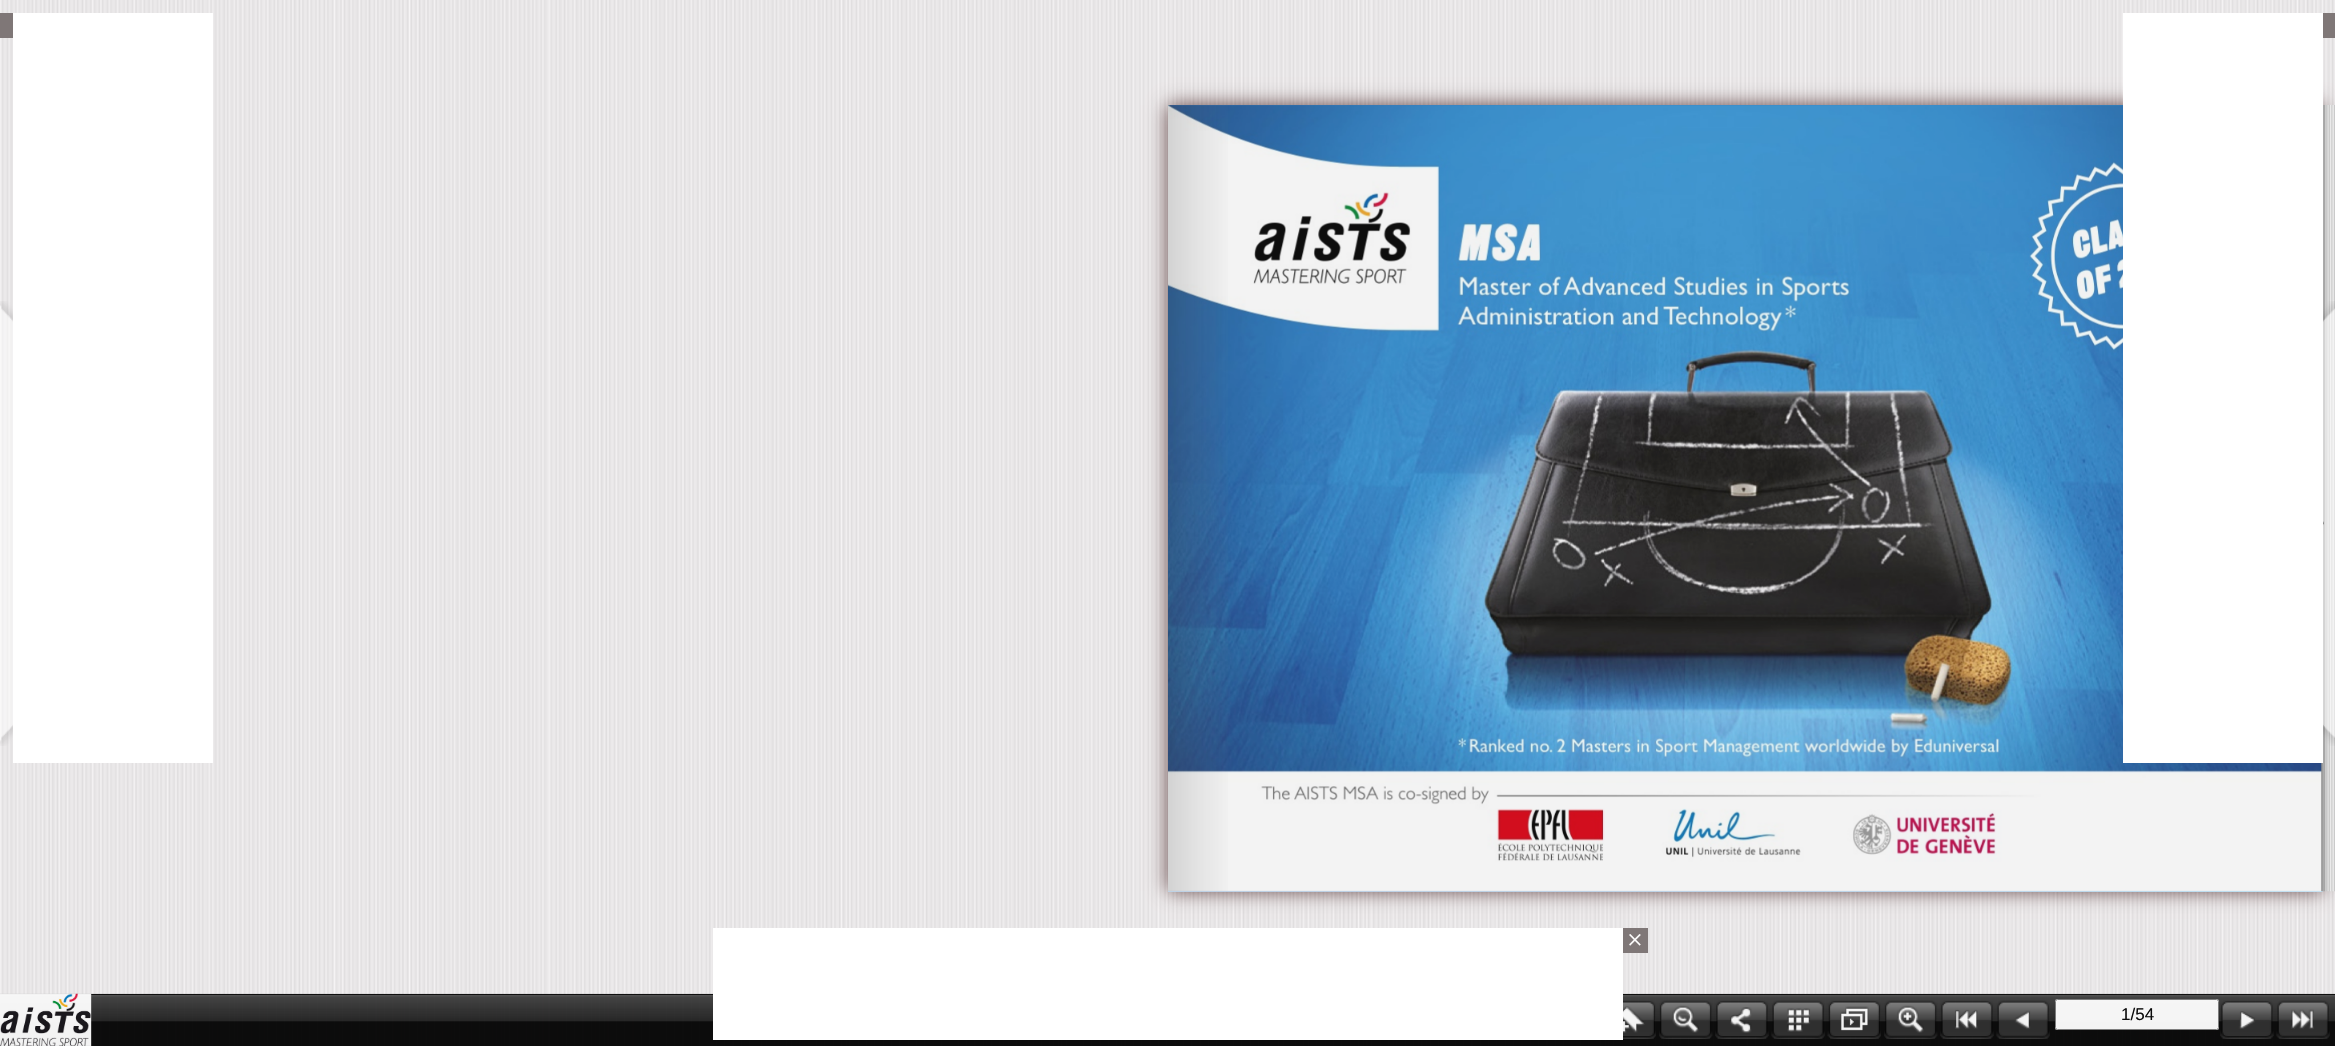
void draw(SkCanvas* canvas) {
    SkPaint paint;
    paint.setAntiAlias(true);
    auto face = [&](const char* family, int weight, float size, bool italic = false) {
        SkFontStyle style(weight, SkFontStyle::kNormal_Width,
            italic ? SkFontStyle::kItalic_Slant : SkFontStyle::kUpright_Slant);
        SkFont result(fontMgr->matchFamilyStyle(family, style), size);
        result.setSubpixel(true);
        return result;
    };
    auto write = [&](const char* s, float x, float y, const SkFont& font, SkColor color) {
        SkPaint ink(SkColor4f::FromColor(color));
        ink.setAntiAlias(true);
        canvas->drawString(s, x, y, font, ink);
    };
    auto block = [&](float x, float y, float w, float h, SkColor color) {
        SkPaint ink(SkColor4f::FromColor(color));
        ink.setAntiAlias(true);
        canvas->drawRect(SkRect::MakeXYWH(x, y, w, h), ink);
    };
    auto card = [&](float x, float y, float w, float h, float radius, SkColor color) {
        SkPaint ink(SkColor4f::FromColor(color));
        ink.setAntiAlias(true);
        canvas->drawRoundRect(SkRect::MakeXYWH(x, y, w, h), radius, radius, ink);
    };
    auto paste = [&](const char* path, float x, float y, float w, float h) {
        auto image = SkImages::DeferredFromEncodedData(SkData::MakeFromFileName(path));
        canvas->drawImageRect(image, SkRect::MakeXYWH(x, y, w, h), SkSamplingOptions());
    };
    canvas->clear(SK_ColorWHITE);
    paste("pic1.png", 0, 0, 2335, 1046);
    block(13, 13, 200, 750, SK_ColorWHITE);
    block(0, 13, 13, 25, SkColorSetRGB(127, 119, 119));
    paint.setColor(SkColorSetARGB(179, 40, 0, 0));
    paint.setMaskFilter(SkMaskFilter::MakeBlur(kNormal_SkBlurStyle, 9.5f));
    canvas->drawRect(SkRect::MakeXYWH(1168, 105, 1155, 786), paint);
    paint.setMaskFilter(nullptr);
    paste("pic3.png", 1168, 105, 1155, 787);
    paste("pic4.png", 1168, 105, 1155, 787);
    paste("pic5.png", 1168, 105, 1155, 787);
    paste("pic6.png", 1168, 105, 1155, 787);
    block(1168, 105, 1154, 786, SkColorSetARGB(26, 136, 136, 136));
    paste("pic7.png", 2321, 105, 14, 787);
    block(2123, 13, 200, 750, SK_ColorWHITE);
    block(2323, 13, 12, 25, SkColorSetRGB(127, 119, 119));
    paste("pic9.png", 0, 993, 2335, 53);
    block(713, 928, 910, 112, SK_ColorWHITE);
    block(1623, 928, 25, 25, SkColorSetRGB(127, 119, 119));
    auto kFont1 = face("Liberation Serif", 400, 28);
    write("×", 1627, 949, kFont1, SK_ColorWHITE);
    paste("pic2.png", 0, 301, 13, 445);
    {
        const SkColor colors[] = {SkColorSetARGB(46, 63, 63, 63), SkColorSetARGB(0, 123, 123, 123)};
        const float stops[] = {0, 1};
        const SkPoint ends[] = {{1168, 105}, {1236, 105}};
        paint.setShader(SkGradientShader::MakeLinear(ends, colors, stops, 2, SkTileMode::kClamp));
        paint.setAlpha(255);
    }
    canvas->drawRect(SkRect::MakeXYWH(1168, 105, 60, 786), paint);
    paste("pic8.png", 2323, 301, 12, 445);
    paste("pic10.png", 0, 993, 92, 53);
    paste("pic11.png", 1623, 1000, 33, 39);
    paste("pic12.png", 1659, 1000, 54, 39);
    paste("pic13.png", 1715, 1000, 54, 39);
    paste("pic14.png", 1771, 1000, 54, 39);
    paste("pic15.png", 1827, 1000, 54, 39);
    paste("pic16.png", 1884, 1000, 54, 39);
    paste("pic17.png", 1940, 1000, 54, 39);
    paste("pic18.png", 1996, 1000, 54, 39);
    card(2055, 999, 164, 31, 2.5f, SkColorSetARGB(242, 255, 255, 255));
    paint.setStyle(SkPaint::kStroke_Style);
    paint.setStrokeWidth(1);
    paint.setShader(nullptr);
    paint.setColor(SkColorSetARGB(242, 118, 118, 118));
    canvas->drawRoundRect(SkRect::MakeXYWH(2055.5f, 999.5f, 163, 30), 2, 2, paint);
    auto kFont2 = face("Liberation Sans", 400, 17);
    write("1/54", 2121, 1020, kFont2, SkColorSetRGB(12, 12, 12));
    paste("pic19.png", 2220, 1000, 54, 39);
    paste("pic20.png", 2276, 1000, 54, 39);
}
